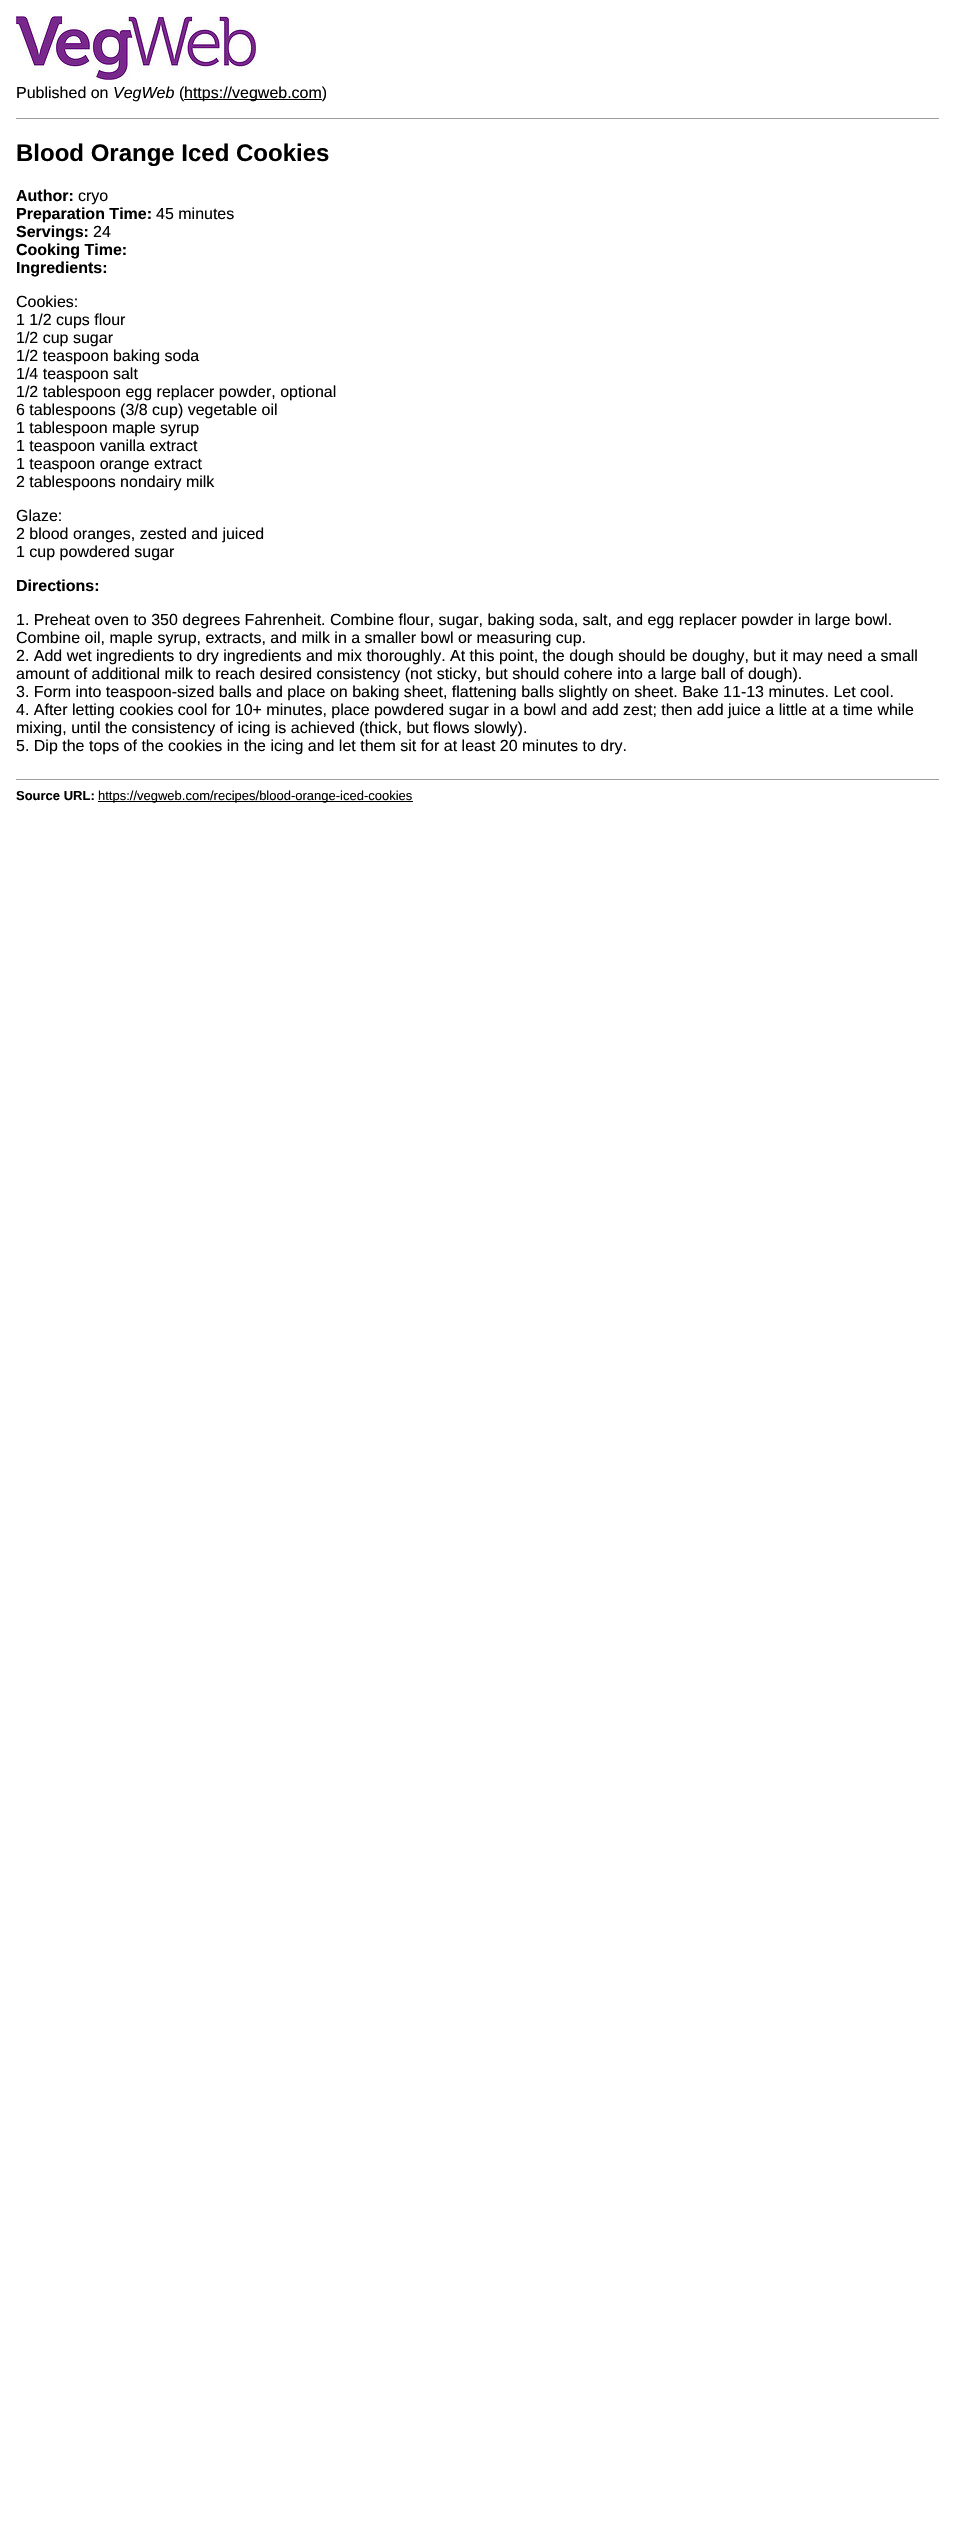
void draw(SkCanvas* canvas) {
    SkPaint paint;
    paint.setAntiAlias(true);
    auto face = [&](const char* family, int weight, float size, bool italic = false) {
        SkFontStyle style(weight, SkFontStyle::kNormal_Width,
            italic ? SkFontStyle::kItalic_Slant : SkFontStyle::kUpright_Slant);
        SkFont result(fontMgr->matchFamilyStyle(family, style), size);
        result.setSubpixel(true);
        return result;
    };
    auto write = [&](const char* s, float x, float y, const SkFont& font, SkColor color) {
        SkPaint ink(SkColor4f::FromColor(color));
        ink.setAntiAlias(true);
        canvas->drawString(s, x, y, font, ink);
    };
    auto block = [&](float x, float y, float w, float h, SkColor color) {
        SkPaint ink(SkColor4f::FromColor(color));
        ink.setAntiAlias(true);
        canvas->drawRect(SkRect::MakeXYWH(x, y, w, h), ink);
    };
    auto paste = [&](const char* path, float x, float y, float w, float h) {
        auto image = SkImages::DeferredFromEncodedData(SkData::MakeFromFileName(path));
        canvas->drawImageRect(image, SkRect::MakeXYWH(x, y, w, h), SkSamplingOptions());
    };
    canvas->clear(SK_ColorWHITE);
    paste("pic1.png", 16, 16, 240, 64);
    auto kFont1 = face("Liberation Sans", 400, 16);
    write("Published on", 16, 98, kFont1, SK_ColorBLACK);
    auto kFont2 = face("Liberation Sans", 400, 16, true);
    write("VegWeb", 113, 98, kFont2, SK_ColorBLACK);
    write("(", 179, 98, kFont1, SK_ColorBLACK);
    block(184, 99, 138, 1, SK_ColorBLACK);
    write("https://vegweb.com)", 184, 98, kFont1, SK_ColorBLACK);
    block(16, 118, 923, 1, SkColorSetRGB(158, 158, 158));
    auto kFont3 = face("Liberation Sans", 700, 24);
    write("Blood Orange Iced Cookies", 16, 161, kFont3, SK_ColorBLACK);
    auto kFont4 = face("Liberation Sans", 700, 16);
    write("Author:", 16, 201, kFont4, SK_ColorBLACK);
    write("cryo", 78, 201, kFont1, SK_ColorBLACK);
    write("Preparation Time:", 16, 219, kFont4, SK_ColorBLACK);
    write("45 minutes", 156, 219, kFont1, SK_ColorBLACK);
    write("Servings:", 16, 237, kFont4, SK_ColorBLACK);
    write("24", 93, 237, kFont1, SK_ColorBLACK);
    write("Cooking Time:", 16, 255, kFont4, SK_ColorBLACK);
    write("Ingredients:", 16, 273, kFont4, SK_ColorBLACK);
    write("Cookies:", 16, 307, kFont1, SK_ColorBLACK);
    write("1 1/2 cups flour", 16, 325, kFont1, SK_ColorBLACK);
    write("1/2 cup sugar", 16, 343, kFont1, SK_ColorBLACK);
    write("1/2 teaspoon baking soda", 16, 361, kFont1, SK_ColorBLACK);
    write("1/4 teaspoon salt", 16, 379, kFont1, SK_ColorBLACK);
    write("1/2 tablespoon egg replacer powder, optional", 16, 397, kFont1, SK_ColorBLACK);
    write("6 tablespoons (3/8 cup) vegetable oil", 16, 415, kFont1, SK_ColorBLACK);
    write("1 tablespoon maple syrup", 16, 433, kFont1, SK_ColorBLACK);
    write("1 teaspoon vanilla extract", 16, 451, kFont1, SK_ColorBLACK);
    write("1 teaspoon orange extract", 16, 469, kFont1, SK_ColorBLACK);
    write("2 tablespoons nondairy milk", 16, 487, kFont1, SK_ColorBLACK);
    write("Glaze:", 16, 521, kFont1, SK_ColorBLACK);
    write("2 blood oranges, zested and juiced", 16, 539, kFont1, SK_ColorBLACK);
    write("1 cup powdered sugar", 16, 557, kFont1, SK_ColorBLACK);
    write("Directions:", 16, 591, kFont4, SK_ColorBLACK);
    write("1. Preheat oven to 350 degrees Fahrenheit. Combine flour, sugar, baking soda, salt, and egg replacer powder in large bowl.", 16, 625, kFont1, SK_ColorBLACK);
    write("Combine oil, maple syrup, extracts, and milk in a smaller bowl or measuring cup.", 16, 643, kFont1, SK_ColorBLACK);
    write("2. Add wet ingredients to dry ingredients and mix thoroughly. At this point, the dough should be doughy, but it may need a small", 16, 661, kFont1, SK_ColorBLACK);
    write("amount of additional milk to reach desired consistency (not sticky, but should cohere into a large ball of dough).", 16, 679, kFont1, SK_ColorBLACK);
    write("3. Form into teaspoon-sized balls and place on baking sheet, flattening balls slightly on sheet. Bake 11-13 minutes. Let cool.", 16, 697, kFont1, SK_ColorBLACK);
    write("4. After letting cookies cool for 10+ minutes, place powdered sugar in a bowl and add zest; then add juice a little at a time while", 16, 715, kFont1, SK_ColorBLACK);
    write("mixing, until the consistency of icing is achieved (thick, but flows slowly).", 16, 733, kFont1, SK_ColorBLACK);
    write("5. Dip the tops of the cookies in the icing and let them sit for at least 20 minutes to dry.", 16, 751, kFont1, SK_ColorBLACK);
    block(16, 779, 923, 1, SkColorSetRGB(158, 158, 158));
    auto kFont5 = face("Liberation Sans", 700, 13);
    write("Source URL:", 16, 800, kFont5, SK_ColorBLACK);
    block(98, 801, 315, 1, SK_ColorBLACK);
    auto kFont6 = face("Liberation Sans", 400, 13);
    write("https://vegweb.com/recipes/blood-orange-iced-cookies", 98, 800, kFont6, SK_ColorBLACK);
}
